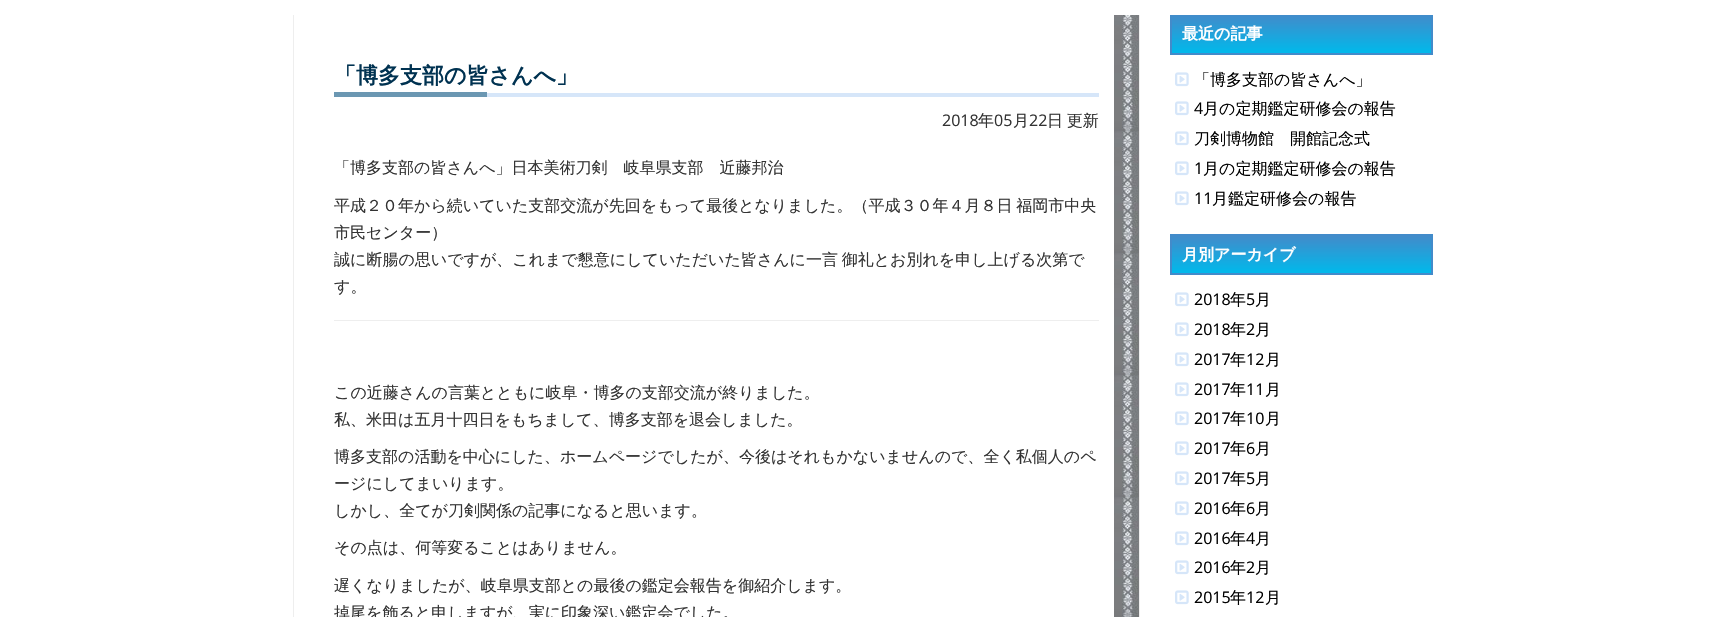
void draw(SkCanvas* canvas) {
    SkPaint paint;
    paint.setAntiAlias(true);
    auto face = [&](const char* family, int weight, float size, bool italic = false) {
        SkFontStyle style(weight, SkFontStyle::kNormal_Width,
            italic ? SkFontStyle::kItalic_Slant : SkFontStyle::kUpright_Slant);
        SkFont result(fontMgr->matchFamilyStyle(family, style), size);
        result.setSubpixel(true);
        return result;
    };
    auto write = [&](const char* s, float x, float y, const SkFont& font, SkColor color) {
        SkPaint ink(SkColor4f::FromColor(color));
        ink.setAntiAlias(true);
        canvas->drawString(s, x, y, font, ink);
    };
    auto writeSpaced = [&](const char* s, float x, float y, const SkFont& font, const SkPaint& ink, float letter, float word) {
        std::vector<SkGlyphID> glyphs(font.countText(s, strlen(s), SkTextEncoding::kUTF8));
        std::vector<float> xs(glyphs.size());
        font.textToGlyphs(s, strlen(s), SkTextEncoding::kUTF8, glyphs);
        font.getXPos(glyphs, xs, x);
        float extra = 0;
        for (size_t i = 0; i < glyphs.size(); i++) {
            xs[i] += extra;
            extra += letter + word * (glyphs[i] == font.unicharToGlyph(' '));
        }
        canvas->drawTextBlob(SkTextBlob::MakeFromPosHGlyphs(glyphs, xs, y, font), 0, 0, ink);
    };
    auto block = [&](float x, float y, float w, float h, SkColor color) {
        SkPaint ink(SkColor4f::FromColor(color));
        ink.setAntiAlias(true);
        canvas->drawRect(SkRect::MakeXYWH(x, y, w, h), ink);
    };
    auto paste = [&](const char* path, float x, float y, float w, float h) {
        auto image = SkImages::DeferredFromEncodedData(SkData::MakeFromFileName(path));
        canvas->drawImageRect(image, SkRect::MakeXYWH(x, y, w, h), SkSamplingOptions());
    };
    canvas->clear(SK_ColorWHITE);
    paste("pic1.png", 1114, 15, 25, 602);
    paint.setStyle(SkPaint::kStroke_Style);
    paint.setStrokeWidth(1);
    paint.setColor(SkColorSetRGB(238, 238, 238));
    canvas->drawRect(SkRect::MakeXYWH(293.5f, 8.5f, 846, 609), paint);
    paint.setStyle(SkPaint::kFill_Style);
    {
        const SkColor colors[] = {SkColorSetRGB(66, 139, 202), SkColorSetRGB(0, 185, 235)};
        const float stops[] = {0, 1};
        const SkPoint ends[] = {{1302, 15}, {1302, 53}};
        paint.setShader(SkGradientShader::MakeLinear(ends, colors, stops, 2, SkTileMode::kClamp));
        paint.setAlpha(255);
    }
    canvas->drawRect(SkRect::MakeXYWH(1172, 15, 259, 38), paint);
    paint.setStyle(SkPaint::kStroke_Style);
    paint.setStrokeWidth(2);
    paint.setShader(nullptr);
    paint.setColor(SkColorSetRGB(66, 139, 202));
    canvas->drawRect(SkRect::MakeXYWH(1171, 14, 261, 40), paint);
    block(293, 8, 1140, 7, SK_ColorWHITE);
    block(487, 93, 612, 4, SkColorSetRGB(214, 230, 249));
    auto kFont1 = face("WenQuanYi Zen Hei", 700, 22);
    write("「博多支部の皆さんへ」", 334, 83, kFont1, SkColorSetRGB(0, 50, 81));
    block(334, 92, 153, 5, SkColorSetRGB(107, 151, 178));
    auto kFont2 = face("Open Sans", 400, 16);
    write("2018", 942, 126, kFont2, SkColorSetRGB(51, 51, 51));
    auto kFont3 = face("WenQuanYi Zen Hei", 500, 16);
    write("年", 978, 126, kFont3, SkColorSetRGB(51, 51, 51));
    write("05", 994, 126, kFont2, SkColorSetRGB(51, 51, 51));
    write("月", 1013, 126, kFont3, SkColorSetRGB(51, 51, 51));
    write("22", 1029, 126, kFont2, SkColorSetRGB(51, 51, 51));
    paint.setStyle(SkPaint::kFill_Style);
    paint.setColor(SkColorSetRGB(51, 51, 51));
    writeSpaced("日 更新", 1047, 126, kFont3, paint, 0, -1);
    write("「博多支部の皆さんへ」日本美術刀剣　岐阜県支部　近藤邦治", 334, 173, kFont3, SkColorSetRGB(51, 51, 51));
    writeSpaced("平成２０年から続いていた支部交流が先回をもって最後となりました。（平成３０年４月８日 福岡市中央", 334, 211, kFont3, paint, 0, -1);
    write("市民センター）", 334, 238, kFont3, SkColorSetRGB(51, 51, 51));
    writeSpaced("誠に断腸の思いですが、これまで懇意にしていただいた皆さんに一言 御礼とお別れを申し上げる次第で", 334, 265, kFont3, paint, 0, -1);
    write("す。", 334, 292, kFont3, SkColorSetRGB(51, 51, 51));
    block(334, 320, 765, 1, SkColorSetRGB(238, 238, 238));
    write("この近藤さんの言葉とともに岐阜・博多の支部交流が終りました。", 334, 398, kFont3, SkColorSetRGB(51, 51, 51));
    write("私、米田は五月十四日をもちまして、博多支部を退会しました。", 334, 425, kFont3, SkColorSetRGB(51, 51, 51));
    write("博多支部の活動を中心にした、ホームページでしたが、今後はそれもかないませんので、全く私個人のペ", 334, 462, kFont3, SkColorSetRGB(51, 51, 51));
    write("ージにしてまいります。", 334, 489, kFont3, SkColorSetRGB(51, 51, 51));
    write("しかし、全てが刀剣関係の記事になると思います。", 334, 516, kFont3, SkColorSetRGB(51, 51, 51));
    write("その点は、何等変ることはありません。", 334, 553, kFont3, SkColorSetRGB(51, 51, 51));
    write("遅くなりましたが、岐阜県支部との最後の鑑定会報告を御紹介します。", 334, 591, kFont3, SkColorSetRGB(51, 51, 51));
    write("掉尾を飾ると申しますが、実に印象深い鑑定会でした。", 334, 618, kFont3, SkColorSetRGB(51, 51, 51));
    auto kFont4 = face("WenQuanYi Zen Hei", 700, 16);
    write("最近の記事", 1182, 39, kFont4, SK_ColorWHITE);
    paste("pic2.png", 1175, 72, 14, 15);
    write("「博多支部の皆さんへ」", 1194, 85, kFont3, SK_ColorBLACK);
    paste("pic2.png", 1175, 101, 14, 15);
    write("4", 1194, 114, kFont2, SK_ColorBLACK);
    write("月の定期鑑定研修会の報告", 1203, 114, kFont3, SK_ColorBLACK);
    paste("pic2.png", 1175, 131, 14, 15);
    write("刀剣博物館　開館記念式", 1194, 144, kFont3, SK_ColorBLACK);
    paste("pic2.png", 1175, 161, 14, 15);
    write("1", 1194, 174, kFont2, SK_ColorBLACK);
    write("月の定期鑑定研修会の報告", 1203, 174, kFont3, SK_ColorBLACK);
    paste("pic2.png", 1175, 191, 14, 15);
    write("11", 1194, 204, kFont2, SK_ColorBLACK);
    write("月鑑定研修会の報告", 1212, 204, kFont3, SK_ColorBLACK);
    {
        const SkColor colors[] = {SkColorSetRGB(66, 139, 202), SkColorSetRGB(0, 185, 235)};
        const float stops[] = {0, 1};
        const SkPoint ends[] = {{1302, 236}, {1302, 273}};
        paint.setShader(SkGradientShader::MakeLinear(ends, colors, stops, 2, SkTileMode::kClamp));
        paint.setAlpha(255);
    }
    canvas->drawRect(SkRect::MakeXYWH(1172, 236, 259, 37), paint);
    paint.setStyle(SkPaint::kStroke_Style);
    paint.setShader(nullptr);
    paint.setColor(SkColorSetRGB(66, 139, 202));
    canvas->drawRect(SkRect::MakeXYWH(1171, 235, 261, 39), paint);
    write("月別アーカイブ", 1182, 260, kFont4, SK_ColorWHITE);
    paste("pic2.png", 1175, 292, 14, 15);
    write("2018", 1194, 305, kFont2, SK_ColorBLACK);
    write("年", 1230, 305, kFont3, SK_ColorBLACK);
    write("5", 1246, 305, kFont2, SK_ColorBLACK);
    write("月", 1255, 305, kFont3, SK_ColorBLACK);
    paste("pic2.png", 1175, 322, 14, 15);
    write("2018", 1194, 335, kFont2, SK_ColorBLACK);
    write("年", 1230, 335, kFont3, SK_ColorBLACK);
    write("2", 1246, 335, kFont2, SK_ColorBLACK);
    write("月", 1255, 335, kFont3, SK_ColorBLACK);
    paste("pic2.png", 1175, 352, 14, 15);
    write("2017", 1194, 365, kFont2, SK_ColorBLACK);
    write("年", 1230, 365, kFont3, SK_ColorBLACK);
    write("12", 1246, 365, kFont2, SK_ColorBLACK);
    write("月", 1265, 365, kFont3, SK_ColorBLACK);
    paste("pic2.png", 1175, 382, 14, 15);
    write("2017", 1194, 395, kFont2, SK_ColorBLACK);
    write("年", 1230, 395, kFont3, SK_ColorBLACK);
    write("11", 1246, 395, kFont2, SK_ColorBLACK);
    write("月", 1265, 395, kFont3, SK_ColorBLACK);
    paste("pic2.png", 1175, 411, 14, 15);
    write("2017", 1194, 424, kFont2, SK_ColorBLACK);
    write("年", 1230, 424, kFont3, SK_ColorBLACK);
    write("10", 1246, 424, kFont2, SK_ColorBLACK);
    write("月", 1265, 424, kFont3, SK_ColorBLACK);
    paste("pic2.png", 1175, 441, 14, 15);
    write("2017", 1194, 454, kFont2, SK_ColorBLACK);
    write("年", 1230, 454, kFont3, SK_ColorBLACK);
    write("6", 1246, 454, kFont2, SK_ColorBLACK);
    write("月", 1255, 454, kFont3, SK_ColorBLACK);
    paste("pic2.png", 1175, 471, 14, 15);
    write("2017", 1194, 484, kFont2, SK_ColorBLACK);
    write("年", 1230, 484, kFont3, SK_ColorBLACK);
    write("5", 1246, 484, kFont2, SK_ColorBLACK);
    write("月", 1255, 484, kFont3, SK_ColorBLACK);
    paste("pic2.png", 1175, 501, 14, 15);
    write("2016", 1194, 514, kFont2, SK_ColorBLACK);
    write("年", 1230, 514, kFont3, SK_ColorBLACK);
    write("6", 1246, 514, kFont2, SK_ColorBLACK);
    write("月", 1255, 514, kFont3, SK_ColorBLACK);
    paste("pic2.png", 1175, 531, 14, 15);
    write("2016", 1194, 544, kFont2, SK_ColorBLACK);
    write("年", 1230, 544, kFont3, SK_ColorBLACK);
    write("4", 1246, 544, kFont2, SK_ColorBLACK);
    write("月", 1255, 544, kFont3, SK_ColorBLACK);
    paste("pic2.png", 1175, 560, 14, 15);
    write("2016", 1194, 573, kFont2, SK_ColorBLACK);
    write("年", 1230, 573, kFont3, SK_ColorBLACK);
    write("2", 1246, 573, kFont2, SK_ColorBLACK);
    write("月", 1255, 573, kFont3, SK_ColorBLACK);
    paste("pic2.png", 1175, 590, 14, 15);
    write("2015", 1194, 603, kFont2, SK_ColorBLACK);
    write("年", 1230, 603, kFont3, SK_ColorBLACK);
    write("12", 1246, 603, kFont2, SK_ColorBLACK);
    write("月", 1265, 603, kFont3, SK_ColorBLACK);
}
